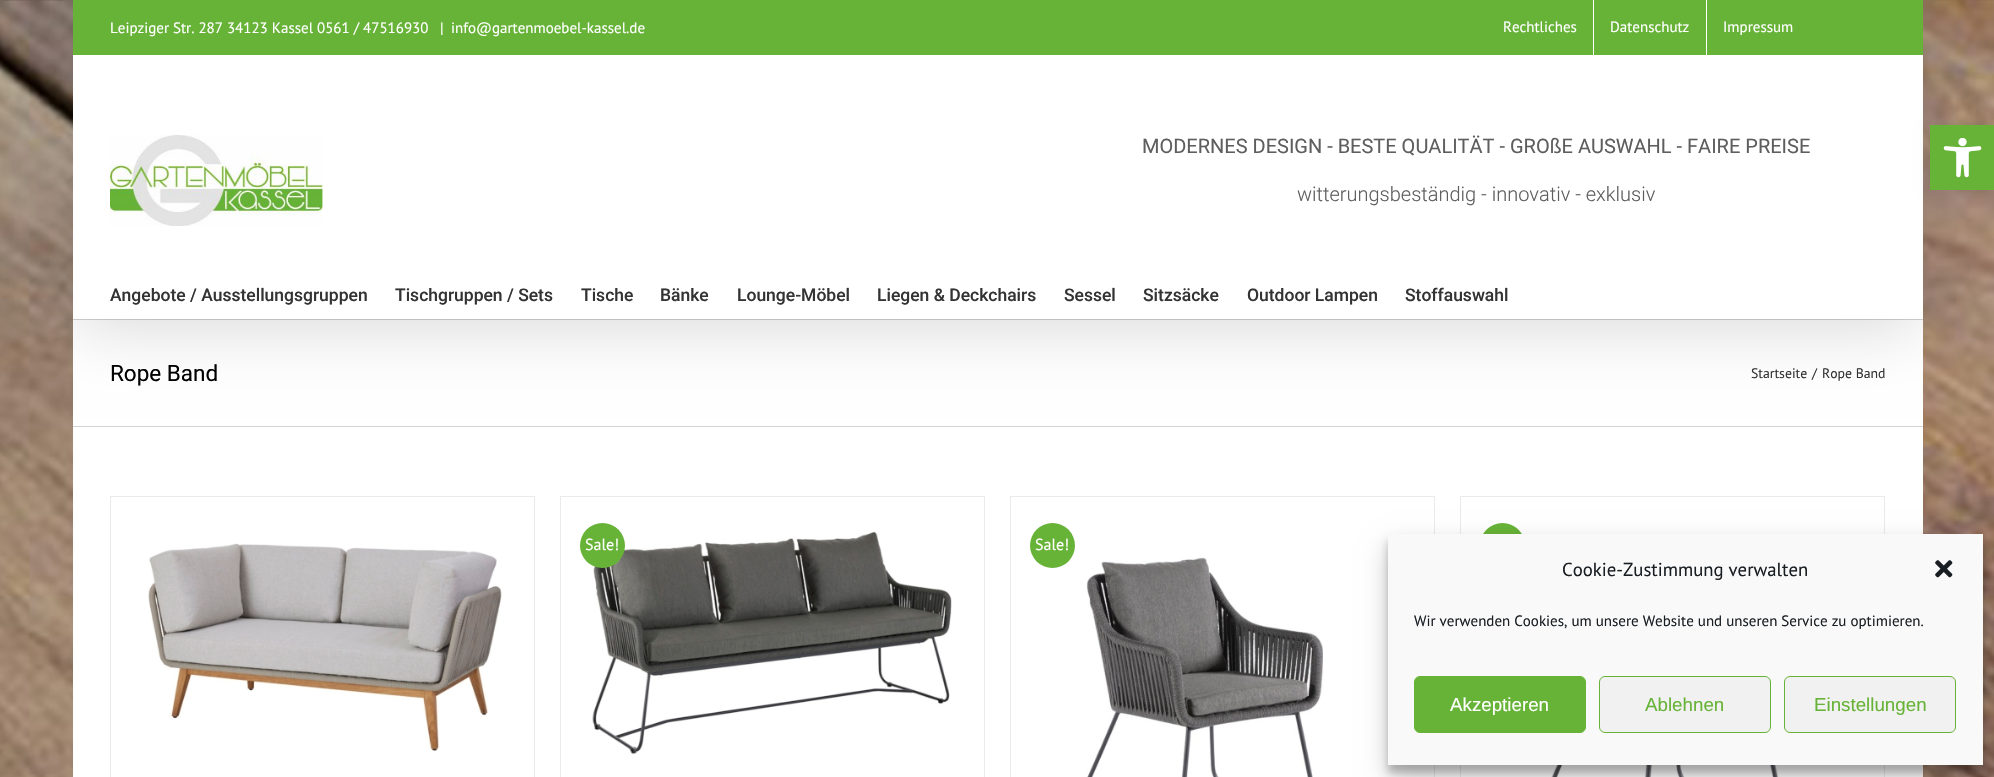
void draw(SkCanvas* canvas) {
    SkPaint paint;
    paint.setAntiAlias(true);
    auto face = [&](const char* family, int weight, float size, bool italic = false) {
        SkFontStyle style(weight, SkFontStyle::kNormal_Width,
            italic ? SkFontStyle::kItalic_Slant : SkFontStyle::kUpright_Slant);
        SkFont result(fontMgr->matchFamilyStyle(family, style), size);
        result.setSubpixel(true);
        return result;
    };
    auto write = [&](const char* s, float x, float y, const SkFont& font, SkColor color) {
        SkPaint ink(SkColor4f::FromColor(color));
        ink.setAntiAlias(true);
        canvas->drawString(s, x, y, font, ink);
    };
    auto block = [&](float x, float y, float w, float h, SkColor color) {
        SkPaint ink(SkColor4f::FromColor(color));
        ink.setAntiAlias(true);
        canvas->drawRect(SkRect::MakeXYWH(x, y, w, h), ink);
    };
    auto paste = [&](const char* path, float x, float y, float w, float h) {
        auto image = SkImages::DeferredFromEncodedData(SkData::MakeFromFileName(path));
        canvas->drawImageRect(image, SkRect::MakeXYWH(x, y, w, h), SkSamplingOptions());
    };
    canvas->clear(SK_ColorWHITE);
    paste("pic1.png", 0, 0, 1994, 777);
    block(73, 320, 1850, 457, SK_ColorWHITE);
    block(73, 319, 1850, 1, SkColorSetRGB(210, 211, 212));
    paint.setColor(SkColorSetARGB(36, 0, 0, 0));
    paint.setMaskFilter(SkMaskFilter::MakeBlur(kNormal_SkBlurStyle, 31));
    canvas->drawRect(SkRect::MakeXYWH(75, 15, 1845, 314), paint);
    paint.setMaskFilter(nullptr);
    block(73, 0, 1850, 55, SkColorSetRGB(103, 179, 55));
    block(73, 55, 1850, 1, SK_ColorWHITE);
    auto kFont1 = face("PT Sans", 400, 15);
    write("Leipziger Str. 287 34123 Kassel 0561 / 47516930", 110, 33, kFont1, SK_ColorWHITE);
    write("|", 440, 33, kFont1, SK_ColorWHITE);
    write("info@gartenmoebel-kassel.de", 451, 33, kFont1, SK_ColorWHITE);
    write("Rechtliches", 1503, 32, kFont1, SK_ColorWHITE);
    block(1593, 0, 1, 55, SK_ColorWHITE);
    write("Datenschutz", 1610, 32, kFont1, SK_ColorWHITE);
    block(1706, 0, 1, 55, SK_ColorWHITE);
    write("Impressum", 1723, 32, kFont1, SK_ColorWHITE);
    block(73, 56, 1850, 263, SK_ColorWHITE);
    paste("pic2.png", 110, 135, 213, 91);
    auto kFont2 = face("Roboto", 400, 20);
    write("MODERNES DESIGN - BESTE QUALITÄT - GROßE AUSWAHL - FAIRE PREISE", 1142, 153, kFont2, SkColorSetRGB(94, 94, 94));
    auto kFont3 = face("Roboto", 300, 20);
    write("witterungsbeständig - innovativ - exklusiv", 1297, 201, kFont3, SkColorSetRGB(94, 94, 94));
    auto kFont4 = face("Roboto", 500, 17.5f);
    write("Angebote / Ausstellungsgruppen", 110, 301, kFont4, SkColorSetRGB(51, 51, 51));
    write("Tischgruppen / Sets", 395, 301, kFont4, SkColorSetRGB(51, 51, 51));
    write("Tische", 581, 301, kFont4, SkColorSetRGB(51, 51, 51));
    write("Bänke", 660, 301, kFont4, SkColorSetRGB(51, 51, 51));
    write("Lounge-Möbel", 737, 301, kFont4, SkColorSetRGB(51, 51, 51));
    write("Liegen & Deckchairs", 877, 301, kFont4, SkColorSetRGB(51, 51, 51));
    write("Sessel", 1064, 301, kFont4, SkColorSetRGB(51, 51, 51));
    write("Sitzsäcke", 1143, 301, kFont4, SkColorSetRGB(51, 51, 51));
    write("Outdoor Lampen", 1247, 301, kFont4, SkColorSetRGB(51, 51, 51));
    write("Stoffauswahl", 1405, 301, kFont4, SkColorSetRGB(51, 51, 51));
    block(73, 426, 1850, 1, SkColorSetRGB(210, 211, 212));
    auto kFont5 = face("Roboto", 400, 22.5f);
    write("Rope Band", 110, 381, kFont5, SK_ColorBLACK);
    auto kFont6 = face("PT Sans", 400, 13.75f);
    write("Startseite", 1751, 378, kFont6, SkColorSetRGB(51, 51, 51));
    write("/", 1812, 378, kFont6, SkColorSetRGB(51, 51, 51));
    write("Rope Band", 1822, 378, kFont6, SkColorSetRGB(51, 51, 51));
    block(110, 496, 425, 1, SkColorSetRGB(235, 234, 234));
    block(534, 496, 1, 281, SkColorSetRGB(235, 234, 234));
    block(110, 496, 1, 281, SkColorSetRGB(235, 234, 234));
    paste("pic3.png", 148, 543, 357, 208);
    block(560, 496, 425, 1, SkColorSetRGB(235, 234, 234));
    block(984, 496, 1, 281, SkColorSetRGB(235, 234, 234));
    block(560, 496, 1, 281, SkColorSetRGB(235, 234, 234));
    paste("pic4.png", 592, 531, 360, 224);
    paint.setColor(SkColorSetRGB(103, 179, 55));
    canvas->drawCircle(602.5f, 545.5f, 22.5f, paint);
    auto kFont7 = face("PT Sans", 400, 16);
    write("Sale!", 585, 550, kFont7, SK_ColorWHITE);
    block(1010, 496, 425, 1, SkColorSetRGB(235, 234, 234));
    block(1434, 496, 1, 281, SkColorSetRGB(235, 234, 234));
    block(1010, 496, 1, 281, SkColorSetRGB(235, 234, 234));
    canvas->drawCircle(1052.5f, 545.5f, 22.5f, paint);
    write("Sale!", 1035, 550, kFont7, SK_ColorWHITE);
    paste("pic5.png", 1086, 557, 238, 220);
    block(1460, 496, 425, 1, SkColorSetRGB(235, 234, 234));
    block(1884, 496, 1, 281, SkColorSetRGB(235, 234, 234));
    block(1460, 496, 1, 281, SkColorSetRGB(235, 234, 234));
    canvas->drawCircle(1502.5f, 545.5f, 22.5f, paint);
    paste("pic6.png", 1551, 765, 239, 12);
    paint.setColor(SkColorSetARGB(26, 0, 0, 0));
    paint.setMaskFilter(SkMaskFilter::MakeBlur(kNormal_SkBlurStyle, 6));
    canvas->drawRect(SkRect::MakeXYWH(1930, 125, 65, 65), paint);
    paint.setMaskFilter(nullptr);
    block(1930, 125, 64, 65, SkColorSetRGB(103, 179, 56));
    paste("pic7.png", 1943, 138, 39, 40);
    paint.setColor(SkColorSetARGB(59, 0, 0, 0));
    paint.setMaskFilter(SkMaskFilter::MakeBlur(kNormal_SkBlurStyle, 4));
    canvas->drawRect(SkRect::MakeXYWH(1388, 541, 595, 232), paint);
    paint.setMaskFilter(nullptr);
    paint.setColor(SkColorSetARGB(48, 0, 0, 0));
    paint.setMaskFilter(SkMaskFilter::MakeBlur(kNormal_SkBlurStyle, 12.5f));
    canvas->drawRect(SkRect::MakeXYWH(1388, 546, 595, 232), paint);
    paint.setMaskFilter(nullptr);
    block(1388, 534, 595, 231, SkColorSetRGB(249, 249, 249));
    auto kFont8 = face("PT Sans", 400, 18.75f);
    write("Cookie-Zustimmung verwalten", 1562, 576, kFont8, SkColorSetRGB(25, 30, 35));
    paste("pic8.png", 1935, 560, 18, 18);
    write("Wir verwenden Cookies, um unsere Website und unseren Service zu optimieren.", 1414, 626, kFont1, SkColorSetRGB(25, 30, 35));
    paint.setColor(SkColorSetRGB(103, 179, 55));
    canvas->drawRoundRect(SkRect::MakeXYWH(1414.5f, 676.5f, 171, 56), 5.5f, 5.5f, paint);
    paint.setStyle(SkPaint::kStroke_Style);
    paint.setStrokeWidth(1);
    canvas->drawRoundRect(SkRect::MakeXYWH(1414.5f, 676.5f, 171, 56), 5.5f, 5.5f, paint);
    auto kFont9 = face("Liberation Sans", 400, 18.75f);
    write("Akzeptieren", 1450, 711, kFont9, SK_ColorWHITE);
    paint.setStyle(SkPaint::kFill_Style);
    paint.setColor(SkColorSetRGB(241, 241, 241));
    canvas->drawRoundRect(SkRect::MakeXYWH(1599.5f, 676.5f, 171, 56), 5.5f, 5.5f, paint);
    paint.setStyle(SkPaint::kStroke_Style);
    paint.setColor(SkColorSetRGB(103, 179, 55));
    canvas->drawRoundRect(SkRect::MakeXYWH(1599.5f, 676.5f, 171, 56), 5.5f, 5.5f, paint);
    write("Ablehnen", 1645, 711, kFont9, SkColorSetRGB(103, 179, 55));
    paint.setStyle(SkPaint::kFill_Style);
    paint.setColor(SkColorSetRGB(241, 241, 241));
    canvas->drawRoundRect(SkRect::MakeXYWH(1784.5f, 676.5f, 171, 56), 5.5f, 5.5f, paint);
    paint.setStyle(SkPaint::kStroke_Style);
    paint.setColor(SkColorSetRGB(103, 179, 55));
    canvas->drawRoundRect(SkRect::MakeXYWH(1784.5f, 676.5f, 171, 56), 5.5f, 5.5f, paint);
    write("Einstellungen", 1814, 711, kFont9, SkColorSetRGB(103, 179, 55));
}
